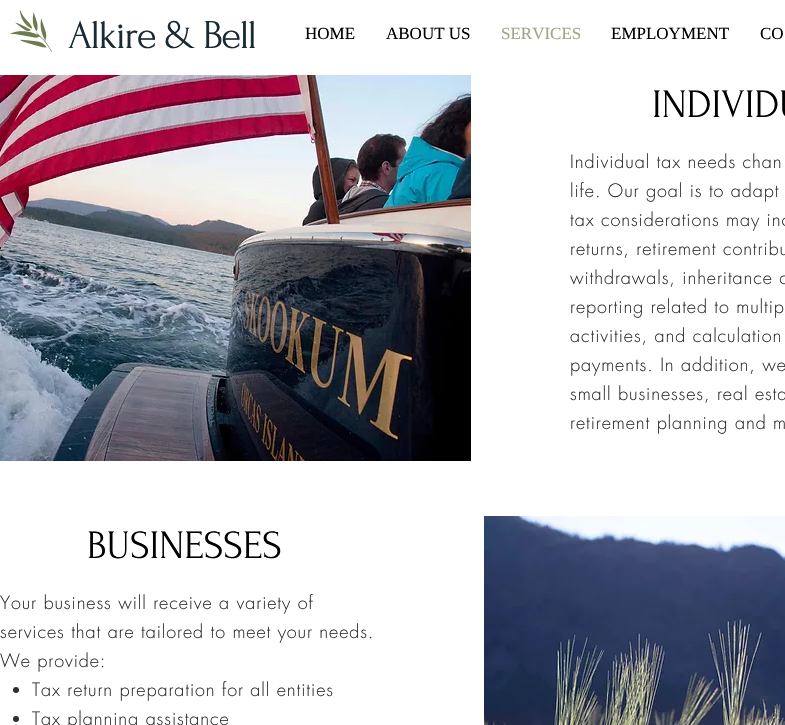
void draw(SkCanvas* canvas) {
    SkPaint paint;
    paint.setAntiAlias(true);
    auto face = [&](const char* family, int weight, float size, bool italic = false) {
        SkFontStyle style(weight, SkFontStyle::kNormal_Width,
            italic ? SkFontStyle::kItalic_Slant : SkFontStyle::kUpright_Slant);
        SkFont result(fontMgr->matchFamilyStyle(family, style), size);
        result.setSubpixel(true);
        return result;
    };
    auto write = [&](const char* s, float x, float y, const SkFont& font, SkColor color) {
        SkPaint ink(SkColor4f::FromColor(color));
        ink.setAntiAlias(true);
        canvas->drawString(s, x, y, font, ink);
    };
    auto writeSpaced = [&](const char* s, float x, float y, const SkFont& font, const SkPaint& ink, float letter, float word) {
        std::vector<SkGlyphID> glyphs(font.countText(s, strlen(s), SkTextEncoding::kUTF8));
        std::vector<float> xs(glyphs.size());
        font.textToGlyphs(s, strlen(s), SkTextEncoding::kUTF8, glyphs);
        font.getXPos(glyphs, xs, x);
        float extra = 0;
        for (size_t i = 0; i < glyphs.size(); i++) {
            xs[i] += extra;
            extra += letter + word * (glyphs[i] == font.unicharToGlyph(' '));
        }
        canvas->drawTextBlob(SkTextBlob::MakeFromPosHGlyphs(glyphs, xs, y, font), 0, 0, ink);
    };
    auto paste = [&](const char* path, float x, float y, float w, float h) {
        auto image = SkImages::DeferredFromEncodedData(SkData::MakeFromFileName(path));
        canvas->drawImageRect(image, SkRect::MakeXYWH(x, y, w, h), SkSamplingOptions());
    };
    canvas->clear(SK_ColorWHITE);
    paste("pic1.png", 10, 10, 42, 42);
    auto kFont1 = face("Forum", 400, 41);
    paint.setColor(SkColorSetRGB(25, 42, 51));
    writeSpaced("Alkire & Bell", 68, 48, kFont1, paint, -1.6f, 0);
    auto kFont2 = face("Liberation Serif", 400, 17);
    write("HOME", 305, 39, kFont2, SK_ColorBLACK);
    write("ABOUT US", 386, 39, kFont2, SK_ColorBLACK);
    write("SERVICES", 501, 39, kFont2, SkColorSetRGB(157, 166, 135));
    write("EMPLOYMENT", 611, 39, kFont2, SK_ColorBLACK);
    write("CO", 760, 39, kFont2, SK_ColorBLACK);
    paste("pic2.png", 0, 75, 471, 386);
    auto kFont3 = face("Forum", 400, 40);
    write("INDIVIDU", 652, 117, kFont3, SK_ColorBLACK);
    auto kFont4 = face("futura", 300, 18);
    paint.setColor(SkColorSetRGB(47, 46, 46));
    writeSpaced("Individual tax needs chan", 570, 168, kFont4, paint, 0.9f, 0);
    writeSpaced("life. Our goal is to adapt", 570, 197, kFont4, paint, 0.9f, 0);
    writeSpaced("tax considerations may inc", 570, 226, kFont4, paint, 0.9f, 0);
    writeSpaced("returns, retirement contribu", 570, 255, kFont4, paint, 0.9f, 0);
    writeSpaced("withdrawals, inheritance c", 570, 284, kFont4, paint, 0.9f, 0);
    writeSpaced("reporting related to multip", 570, 313, kFont4, paint, 0.9f, 0);
    writeSpaced("activities, and calculation", 570, 342, kFont4, paint, 0.9f, 0);
    writeSpaced("payments. In addition, we", 570, 371, kFont4, paint, 0.9f, 0);
    writeSpaced("small businesses, real esta", 570, 400, kFont4, paint, 0.9f, 0);
    writeSpaced("retirement planning and m", 570, 429, kFont4, paint, 0.9f, 0);
    write("BUSINESSES", 87, 558, kFont3, SK_ColorBLACK);
    paste("pic3.png", 484, 516, 301, 209);
    writeSpaced("Your business will receive a variety of", 0, 609, kFont4, paint, 0.9f, 0);
    writeSpaced("services that are tailored to meet your needs.", 0, 638, kFont4, paint, 0.9f, 0);
    writeSpaced("We provide:", 0, 667, kFont4, paint, 0.9f, 0);
    canvas->drawCircle(16, 690, 3, paint);
    writeSpaced("Tax return preparation for all entities", 32, 696, kFont4, paint, 0.9f, 0);
    canvas->drawCircle(16, 719, 3, paint);
    writeSpaced("Tax planning assistance", 32, 725, kFont4, paint, 0.9f, 0);
}
